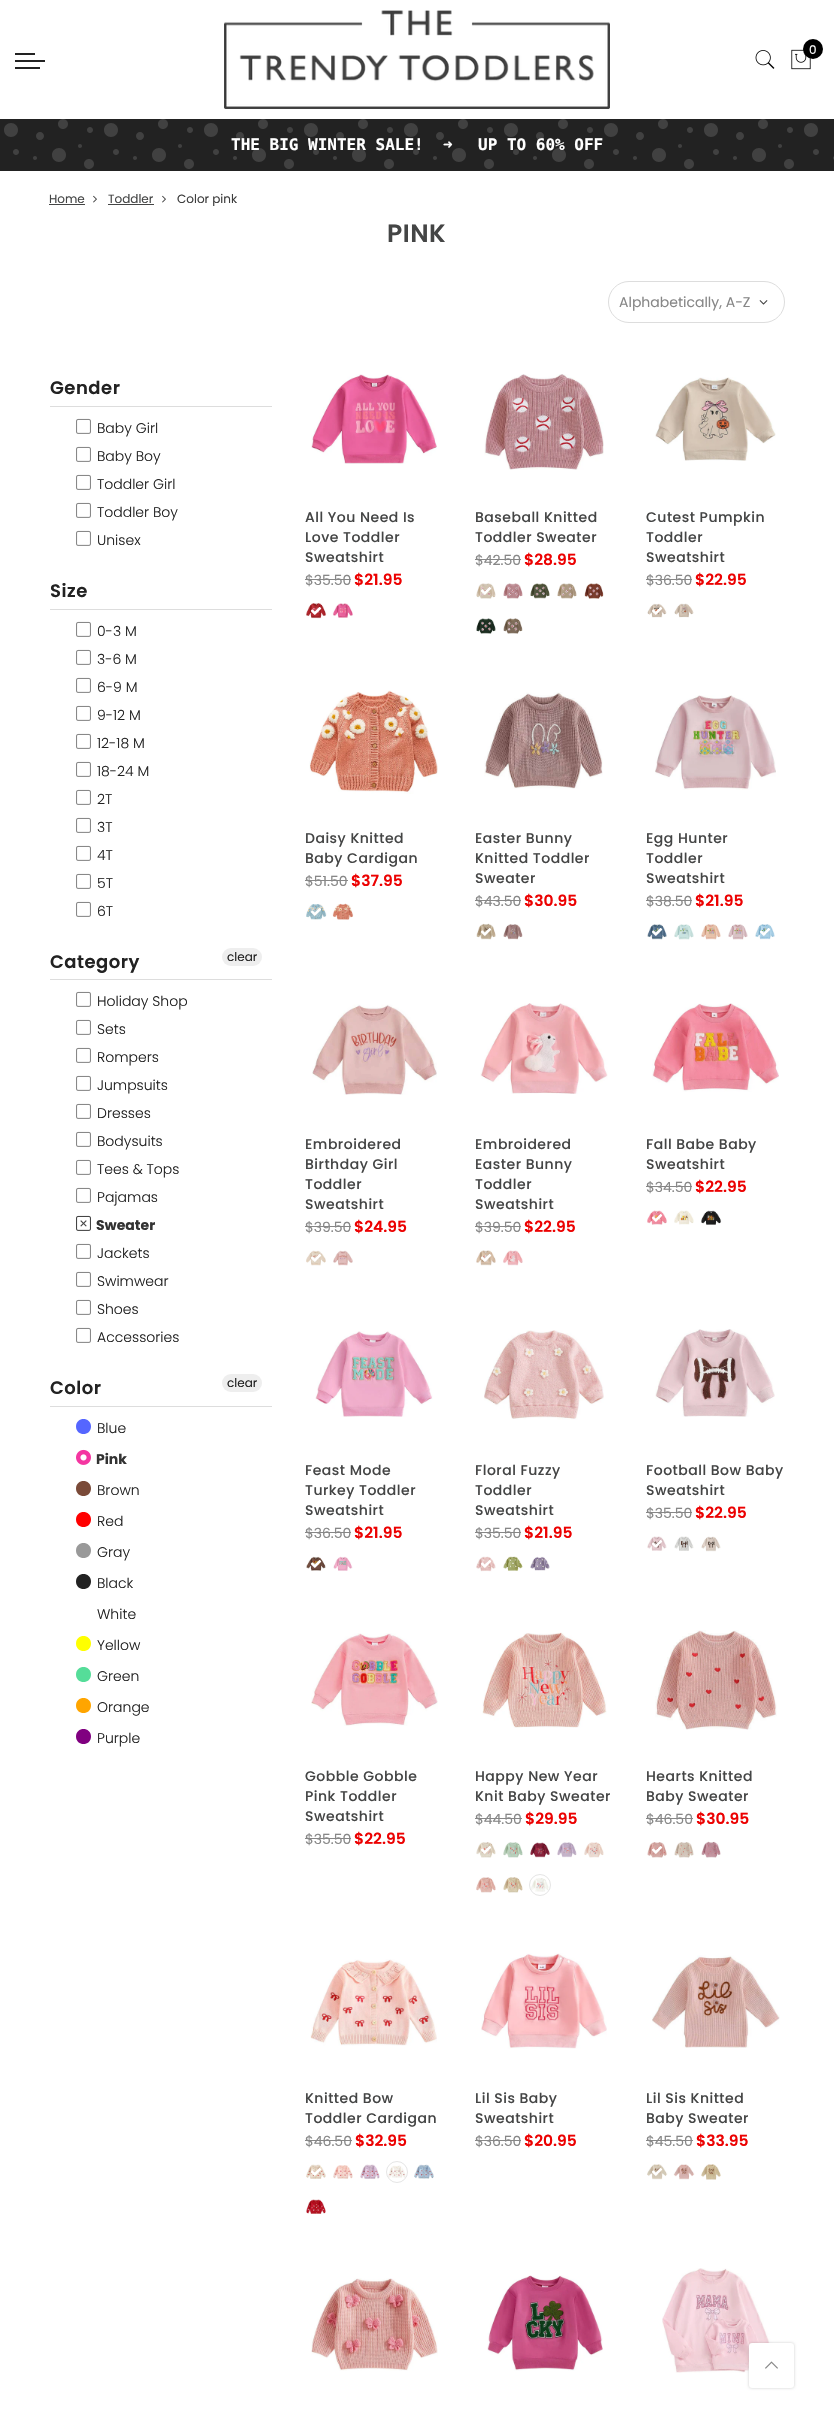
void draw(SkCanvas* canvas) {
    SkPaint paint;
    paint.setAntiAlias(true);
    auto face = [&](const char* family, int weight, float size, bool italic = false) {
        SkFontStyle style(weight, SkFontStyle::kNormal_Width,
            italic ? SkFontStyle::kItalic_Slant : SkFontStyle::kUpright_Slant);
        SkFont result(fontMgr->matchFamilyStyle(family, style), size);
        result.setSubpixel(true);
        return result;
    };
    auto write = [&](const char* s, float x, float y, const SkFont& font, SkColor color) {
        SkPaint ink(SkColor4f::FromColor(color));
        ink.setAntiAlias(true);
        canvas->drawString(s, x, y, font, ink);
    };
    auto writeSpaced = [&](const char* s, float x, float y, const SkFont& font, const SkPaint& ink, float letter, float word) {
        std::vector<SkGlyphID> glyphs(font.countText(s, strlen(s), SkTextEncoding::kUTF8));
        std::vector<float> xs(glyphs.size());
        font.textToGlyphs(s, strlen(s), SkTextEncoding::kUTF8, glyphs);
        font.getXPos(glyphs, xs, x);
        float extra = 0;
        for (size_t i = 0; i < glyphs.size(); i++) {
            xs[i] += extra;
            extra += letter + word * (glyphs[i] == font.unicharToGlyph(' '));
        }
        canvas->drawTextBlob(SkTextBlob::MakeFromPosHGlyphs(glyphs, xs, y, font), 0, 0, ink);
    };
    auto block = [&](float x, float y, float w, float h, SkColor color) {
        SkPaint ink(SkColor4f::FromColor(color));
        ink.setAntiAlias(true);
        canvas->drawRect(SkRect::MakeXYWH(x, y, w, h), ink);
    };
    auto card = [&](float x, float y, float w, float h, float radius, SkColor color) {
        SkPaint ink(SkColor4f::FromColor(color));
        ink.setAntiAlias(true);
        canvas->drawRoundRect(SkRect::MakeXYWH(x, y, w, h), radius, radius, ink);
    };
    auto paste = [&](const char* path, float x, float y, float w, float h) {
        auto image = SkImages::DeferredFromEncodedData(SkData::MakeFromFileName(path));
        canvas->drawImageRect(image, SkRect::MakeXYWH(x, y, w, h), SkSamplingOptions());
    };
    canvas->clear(SK_ColorWHITE);
    paste("pic1.png", 224, 10, 386, 99);
    paste("pic2.png", 755, 50, 20, 19);
    paste("pic3.png", 791, 49, 20, 21);
    paint.setColor(SK_ColorBLACK);
    canvas->drawCircle(813, 49, 10, paint);
    auto kFont1 = face("Poppins", 400, 12);
    write("0", 809, 54, kFont1, SK_ColorWHITE);
    block(15, 53, 20, 2, SkColorSetRGB(34, 34, 34));
    block(15, 60, 30, 2, SkColorSetRGB(34, 34, 34));
    block(15, 67, 25, 2, SkColorSetRGB(34, 34, 34));
    block(0, 119, 834, 52, SkColorSetRGB(34, 34, 34));
    paste("pic4.png", 4, 119, 830, 50);
    auto kFont2 = face("DejaVu Sans Mono", 700, 16);
    write("THE BIG WINTER SALE!  ➜", 231, 150, kFont2, SK_ColorWHITE);
    write("UP TO 60% OFF", 478, 150, kFont2, SK_ColorWHITE);
    write("Home", 49, 203, kFont1, SkColorSetRGB(68, 69, 69));
    block(49, 204, 36, 1, SkColorSetRGB(68, 69, 69));
    paste("pic5.png", 93, 195, 4, 8);
    write("Toddler", 108, 203, kFont1, SkColorSetRGB(68, 69, 69));
    block(108, 204, 46, 1, SkColorSetRGB(68, 69, 69));
    paste("pic5.png", 162, 195, 4, 8);
    write("Color pink", 177, 203, kFont1, SkColorSetRGB(62, 62, 62));
    auto kFont3 = face("Poppins", 600, 25);
    paint.setColor(SkColorSetRGB(68, 69, 69));
    writeSpaced("PINK", 387, 242, kFont3, paint, 0.5f, 0);
    paint.setStyle(SkPaint::kStroke_Style);
    paint.setStrokeWidth(1);
    paint.setColor(SkColorSetRGB(221, 221, 221));
    canvas->drawRoundRect(SkRect::MakeXYWH(608.5f, 281.5f, 176, 41), 20.5f, 20.5f, paint);
    auto kFont4 = face("Poppins", 400, 14);
    write("Alphabetically, A-Z", 619, 307, kFont4, SkColorSetRGB(135, 135, 135));
    paste("pic6.png", 759, 300, 9, 5);
    block(50, 406, 222, 1, SkColorSetRGB(221, 221, 221));
    auto kFont5 = face("Poppins", 600, 18);
    paint.setStyle(SkPaint::kFill_Style);
    paint.setColor(SkColorSetRGB(34, 34, 34));
    writeSpaced("Gender", 50, 394, kFont5, paint, 0.5f, 0);
    paste("pic7.png", 76, 418, 15, 16);
    auto kFont6 = face("Poppins", 300, 14);
    write("Baby Girl", 97, 433, kFont6, SkColorSetRGB(34, 34, 34));
    paste("pic7.png", 76, 446, 15, 16);
    write("Baby Boy", 97, 461, kFont6, SkColorSetRGB(34, 34, 34));
    paste("pic7.png", 76, 474, 15, 16);
    write("Toddler Girl", 97, 489, kFont6, SkColorSetRGB(34, 34, 34));
    paste("pic7.png", 76, 502, 15, 16);
    write("Toddler Boy", 97, 517, kFont6, SkColorSetRGB(34, 34, 34));
    paste("pic7.png", 76, 530, 15, 16);
    write("Unisex", 97, 545, kFont6, SkColorSetRGB(34, 34, 34));
    block(50, 609, 222, 1, SkColorSetRGB(221, 221, 221));
    writeSpaced("Size", 50, 597, kFont5, paint, 0.5f, 0);
    paste("pic7.png", 76, 621, 15, 16);
    write("0-3 M", 97, 636, kFont6, SkColorSetRGB(34, 34, 34));
    paste("pic7.png", 76, 649, 15, 16);
    write("3-6 M", 97, 664, kFont6, SkColorSetRGB(34, 34, 34));
    paste("pic7.png", 76, 677, 15, 16);
    write("6-9 M", 97, 692, kFont6, SkColorSetRGB(34, 34, 34));
    paste("pic7.png", 76, 705, 15, 16);
    write("9-12 M", 97, 720, kFont6, SkColorSetRGB(34, 34, 34));
    paste("pic7.png", 76, 733, 15, 16);
    write("12-18 M", 97, 748, kFont6, SkColorSetRGB(34, 34, 34));
    paste("pic7.png", 76, 761, 15, 16);
    write("18-24 M", 97, 776, kFont6, SkColorSetRGB(34, 34, 34));
    paste("pic7.png", 76, 789, 15, 16);
    write("2T", 97, 804, kFont6, SkColorSetRGB(34, 34, 34));
    paste("pic7.png", 76, 817, 15, 16);
    write("3T", 97, 832, kFont6, SkColorSetRGB(34, 34, 34));
    paste("pic7.png", 76, 845, 15, 16);
    write("4T", 97, 860, kFont6, SkColorSetRGB(34, 34, 34));
    paste("pic7.png", 76, 873, 15, 16);
    write("5T", 97, 888, kFont6, SkColorSetRGB(34, 34, 34));
    paste("pic7.png", 76, 901, 15, 16);
    write("6T", 97, 916, kFont6, SkColorSetRGB(34, 34, 34));
    block(50, 979, 222, 1, SkColorSetRGB(221, 221, 221));
    writeSpaced("Category", 50, 968, kFont5, paint, 0.5f, 0);
    card(222, 948, 40, 18, 9, SkColorSetRGB(238, 238, 238));
    write("clear", 227, 961, kFont1, SkColorSetRGB(34, 34, 34));
    paste("pic7.png", 76, 991, 15, 16);
    write("Holiday Shop", 97, 1006, kFont6, SkColorSetRGB(34, 34, 34));
    paste("pic7.png", 76, 1019, 15, 16);
    write("Sets", 97, 1034, kFont6, SkColorSetRGB(34, 34, 34));
    paste("pic7.png", 76, 1047, 15, 16);
    write("Rompers", 97, 1062, kFont6, SkColorSetRGB(34, 34, 34));
    paste("pic7.png", 76, 1075, 15, 16);
    write("Jumpsuits", 97, 1090, kFont6, SkColorSetRGB(34, 34, 34));
    paste("pic7.png", 76, 1103, 15, 16);
    write("Dresses", 97, 1118, kFont6, SkColorSetRGB(34, 34, 34));
    paste("pic7.png", 76, 1131, 15, 16);
    write("Bodysuits", 97, 1146, kFont6, SkColorSetRGB(34, 34, 34));
    paste("pic7.png", 76, 1159, 15, 16);
    write("Tees & Tops", 97, 1174, kFont6, SkColorSetRGB(34, 34, 34));
    paste("pic7.png", 76, 1187, 15, 16);
    write("Pajamas", 97, 1202, kFont6, SkColorSetRGB(34, 34, 34));
    paste("pic8.png", 76, 1215, 15, 16);
    auto kFont7 = face("Poppins", 700, 14);
    write("Sweater", 96, 1230, kFont7, SkColorSetRGB(51, 51, 51));
    paste("pic7.png", 76, 1243, 15, 16);
    write("Jackets", 97, 1258, kFont6, SkColorSetRGB(34, 34, 34));
    paste("pic7.png", 76, 1271, 15, 16);
    write("Swimwear", 97, 1286, kFont6, SkColorSetRGB(34, 34, 34));
    paste("pic7.png", 76, 1299, 15, 16);
    write("Shoes", 97, 1314, kFont6, SkColorSetRGB(34, 34, 34));
    paste("pic7.png", 76, 1327, 15, 16);
    write("Accessories", 97, 1342, kFont6, SkColorSetRGB(34, 34, 34));
    block(50, 1406, 222, 1, SkColorSetRGB(221, 221, 221));
    writeSpaced("Color", 50, 1394, kFont5, paint, 0.5f, 0);
    card(222, 1374, 40, 18, 9, SkColorSetRGB(238, 238, 238));
    write("clear", 227, 1387, kFont1, SkColorSetRGB(34, 34, 34));
    paint.setColor(SkColorSetRGB(85, 102, 255));
    canvas->drawPath(SkPathBuilder().moveTo(91, 1426.5f).cubicTo(91, 1436.5f, 76, 1436.5f, 76, 1426.5f).cubicTo(76, 1416.5f, 91, 1416.5f, 91, 1426.5f).close().detach(), paint);
    write("Blue", 97, 1433, kFont6, SkColorSetRGB(34, 34, 34));
    paste("pic9.png", 76, 1449, 15, 16);
    write("Pink", 96, 1464, kFont7, SkColorSetRGB(51, 51, 51));
    paint.setColor(SkColorSetRGB(122, 74, 56));
    canvas->drawPath(SkPathBuilder().moveTo(91, 1488.5f).cubicTo(91, 1498.5f, 76, 1498.5f, 76, 1488.5f).cubicTo(76, 1478.5f, 91, 1478.5f, 91, 1488.5f).close().detach(), paint);
    write("Brown", 97, 1495, kFont6, SkColorSetRGB(34, 34, 34));
    paint.setColor(SkColorSetRGB(255, 0, 0));
    canvas->drawPath(SkPathBuilder().moveTo(91, 1519.5f).cubicTo(91, 1529.5f, 76, 1529.5f, 76, 1519.5f).cubicTo(76, 1509.5f, 91, 1509.5f, 91, 1519.5f).close().detach(), paint);
    write("Red", 97, 1526, kFont6, SkColorSetRGB(34, 34, 34));
    paint.setColor(SkColorSetRGB(153, 153, 153));
    canvas->drawPath(SkPathBuilder().moveTo(91, 1550.5f).cubicTo(91, 1560.5f, 76, 1560.5f, 76, 1550.5f).cubicTo(76, 1540.5f, 91, 1540.5f, 91, 1550.5f).close().detach(), paint);
    write("Gray", 97, 1557, kFont6, SkColorSetRGB(34, 34, 34));
    paint.setColor(SkColorSetRGB(34, 34, 34));
    canvas->drawPath(SkPathBuilder().moveTo(91, 1581.5f).cubicTo(91, 1591.5f, 76, 1591.5f, 76, 1581.5f).cubicTo(76, 1571.5f, 91, 1571.5f, 91, 1581.5f).close().detach(), paint);
    write("Black", 97, 1588, kFont6, SkColorSetRGB(34, 34, 34));
    write("White", 97, 1619, kFont6, SkColorSetRGB(34, 34, 34));
    paint.setColor(SkColorSetRGB(255, 255, 0));
    canvas->drawPath(SkPathBuilder().moveTo(91, 1643.5f).cubicTo(91, 1653.5f, 76, 1653.5f, 76, 1643.5f).cubicTo(76, 1633.5f, 91, 1633.5f, 91, 1643.5f).close().detach(), paint);
    write("Yellow", 97, 1650, kFont6, SkColorSetRGB(34, 34, 34));
    paint.setColor(SkColorSetRGB(85, 221, 153));
    canvas->drawPath(SkPathBuilder().moveTo(91, 1674.5f).cubicTo(91, 1684.5f, 76, 1684.5f, 76, 1674.5f).cubicTo(76, 1664.5f, 91, 1664.5f, 91, 1674.5f).close().detach(), paint);
    write("Green", 97, 1681, kFont6, SkColorSetRGB(34, 34, 34));
    paint.setColor(SkColorSetRGB(255, 165, 0));
    canvas->drawPath(SkPathBuilder().moveTo(91, 1705.5f).cubicTo(91, 1715.5f, 76, 1715.5f, 76, 1705.5f).cubicTo(76, 1695.5f, 91, 1695.5f, 91, 1705.5f).close().detach(), paint);
    write("Orange", 97, 1712, kFont6, SkColorSetRGB(34, 34, 34));
    paint.setColor(SkColorSetRGB(128, 0, 128));
    canvas->drawPath(SkPathBuilder().moveTo(91, 1736.5f).cubicTo(91, 1746.5f, 76, 1746.5f, 76, 1736.5f).cubicTo(76, 1726.5f, 91, 1726.5f, 91, 1736.5f).close().detach(), paint);
    write("Purple", 97, 1743, kFont6, SkColorSetRGB(34, 34, 34));
    paste("pic10.png", 311, 374, 126, 90);
    auto kFont8 = face("Poppins", 500, 14);
    paint.setColor(SkColorSetRGB(68, 69, 69));
    writeSpaced("All You Need Is", 305, 522, kFont8, paint, 0.5f, 0);
    writeSpaced("Love Toddler", 305, 542, kFont8, paint, 0.5f, 0);
    writeSpaced("Sweatshirt", 305, 562, kFont8, paint, 0.5f, 0);
    write("$35.50", 305, 585, kFont4, SkColorSetRGB(135, 135, 135));
    block(305, 579, 46, 1, SkColorSetRGB(135, 135, 135));
    auto kFont9 = face("Poppins", 600, 15.5f);
    write("$21.95", 354, 585, kFont9, SkColorSetRGB(236, 1, 1));
    paste("pic11.png", 306, 603, 21, 16);
    paste("pic12.png", 310, 607, 12, 8);
    paste("pic13.png", 332, 603, 21, 15);
    paste("pic14.png", 484, 374, 120, 96);
    writeSpaced("Baseball Knitted", 475, 522, kFont8, paint, 0.5f, 0);
    writeSpaced("Toddler Sweater", 475, 542, kFont8, paint, 0.5f, 0);
    write("$42.50", 475, 565, kFont4, SkColorSetRGB(135, 135, 135));
    block(475, 559, 46, 1, SkColorSetRGB(135, 135, 135));
    write("$28.95", 524, 565, kFont9, SkColorSetRGB(236, 1, 1));
    paste("pic15.png", 476, 583, 20, 16);
    paste("pic16.png", 480, 587, 12, 8);
    paste("pic17.png", 503, 583, 20, 16);
    paste("pic18.png", 530, 583, 20, 16);
    paste("pic19.png", 557, 583, 20, 16);
    paste("pic20.png", 584, 583, 20, 16);
    paste("pic21.png", 476, 618, 20, 16);
    paste("pic22.png", 503, 618, 20, 16);
    paste("pic23.png", 655, 377, 121, 84);
    writeSpaced("Cutest Pumpkin", 646, 522, kFont8, paint, 0.5f, 0);
    writeSpaced("Toddler", 646, 542, kFont8, paint, 0.5f, 0);
    writeSpaced("Sweatshirt", 646, 562, kFont8, paint, 0.5f, 0);
    write("$36.50", 646, 585, kFont4, SkColorSetRGB(135, 135, 135));
    block(646, 579, 46, 1, SkColorSetRGB(135, 135, 135));
    write("$22.95", 695, 585, kFont9, SkColorSetRGB(236, 1, 1));
    paste("pic24.png", 647, 603, 20, 15);
    paste("pic25.png", 651, 607, 12, 8);
    paste("pic26.png", 674, 603, 20, 15);
    paste("pic27.png", 309, 690, 129, 104);
    writeSpaced("Daisy Knitted", 305, 843, kFont8, paint, 0.5f, 0);
    writeSpaced("Baby Cardigan", 305, 863, kFont8, paint, 0.5f, 0);
    write("$51.50", 305, 886, kFont4, SkColorSetRGB(135, 135, 135));
    block(305, 880, 43, 1, SkColorSetRGB(135, 135, 135));
    write("$37.95", 351, 886, kFont9, SkColorSetRGB(236, 1, 1));
    paste("pic28.png", 306, 904, 21, 16);
    paste("pic29.png", 310, 908, 12, 8);
    paste("pic30.png", 332, 903, 22, 17);
    paste("pic31.png", 484, 692, 119, 97);
    writeSpaced("Easter Bunny", 475, 843, kFont8, paint, 0.5f, 0);
    writeSpaced("Knitted Toddler", 475, 863, kFont8, paint, 0.5f, 0);
    writeSpaced("Sweater", 475, 883, kFont8, paint, 0.5f, 0);
    write("$43.50", 475, 906, kFont4, SkColorSetRGB(135, 135, 135));
    block(475, 900, 46, 1, SkColorSetRGB(135, 135, 135));
    write("$30.95", 524, 906, kFont9, SkColorSetRGB(236, 1, 1));
    paste("pic32.png", 476, 923, 20, 17);
    paste("pic33.png", 480, 928, 12, 8);
    paste("pic34.png", 503, 924, 20, 16);
    paste("pic35.png", 655, 695, 121, 95);
    writeSpaced("Egg Hunter", 646, 843, kFont8, paint, 0.5f, 0);
    writeSpaced("Toddler", 646, 863, kFont8, paint, 0.5f, 0);
    writeSpaced("Sweatshirt", 646, 883, kFont8, paint, 0.5f, 0);
    write("$38.50", 646, 906, kFont4, SkColorSetRGB(135, 135, 135));
    block(646, 900, 46, 1, SkColorSetRGB(135, 135, 135));
    write("$21.95", 695, 906, kFont9, SkColorSetRGB(236, 1, 1));
    paste("pic36.png", 647, 924, 20, 16);
    paste("pic37.png", 651, 928, 12, 8);
    paste("pic38.png", 674, 924, 20, 16);
    paste("pic39.png", 701, 924, 20, 16);
    paste("pic40.png", 728, 924, 20, 16);
    paste("pic41.png", 755, 924, 20, 16);
    paste("pic42.png", 759, 928, 12, 8);
    paste("pic43.png", 312, 1004, 125, 91);
    writeSpaced("Embroidered", 305, 1149, kFont8, paint, 0.5f, 0);
    writeSpaced("Birthday Girl", 305, 1169, kFont8, paint, 0.5f, 0);
    writeSpaced("Toddler", 305, 1189, kFont8, paint, 0.5f, 0);
    writeSpaced("Sweatshirt", 305, 1209, kFont8, paint, 0.5f, 0);
    write("$39.50", 305, 1232, kFont4, SkColorSetRGB(135, 135, 135));
    block(305, 1226, 46, 1, SkColorSetRGB(135, 135, 135));
    write("$24.95", 354, 1232, kFont9, SkColorSetRGB(236, 1, 1));
    paste("pic44.png", 306, 1250, 20, 16);
    paste("pic45.png", 310, 1254, 12, 8);
    paste("pic46.png", 333, 1250, 20, 16);
    paste("pic47.png", 480, 1003, 128, 91);
    writeSpaced("Embroidered", 475, 1149, kFont8, paint, 0.5f, 0);
    writeSpaced("Easter Bunny", 475, 1169, kFont8, paint, 0.5f, 0);
    writeSpaced("Toddler", 475, 1189, kFont8, paint, 0.5f, 0);
    writeSpaced("Sweatshirt", 475, 1209, kFont8, paint, 0.5f, 0);
    write("$39.50", 475, 1232, kFont4, SkColorSetRGB(135, 135, 135));
    block(475, 1226, 46, 1, SkColorSetRGB(135, 135, 135));
    write("$22.95", 524, 1232, kFont9, SkColorSetRGB(236, 1, 1));
    paste("pic48.png", 476, 1250, 20, 16);
    paste("pic49.png", 480, 1254, 12, 8);
    paste("pic50.png", 503, 1250, 20, 16);
    paste("pic51.png", 652, 1003, 127, 89);
    writeSpaced("Fall Babe Baby", 646, 1149, kFont8, paint, 0.5f, 0);
    writeSpaced("Sweatshirt", 646, 1169, kFont8, paint, 0.5f, 0);
    write("$34.50", 646, 1192, kFont4, SkColorSetRGB(135, 135, 135));
    block(646, 1186, 46, 1, SkColorSetRGB(135, 135, 135));
    write("$22.95", 695, 1192, kFont9, SkColorSetRGB(236, 1, 1));
    paste("pic52.png", 647, 1210, 20, 15);
    paste("pic53.png", 651, 1214, 12, 8);
    paste("pic54.png", 674, 1210, 20, 15);
    paste("pic55.png", 701, 1210, 21, 15);
    paste("pic56.png", 315, 1331, 118, 86);
    writeSpaced("Feast Mode", 305, 1475, kFont8, paint, 0.5f, 0);
    writeSpaced("Turkey Toddler", 305, 1495, kFont8, paint, 0.5f, 0);
    writeSpaced("Sweatshirt", 305, 1515, kFont8, paint, 0.5f, 0);
    write("$36.50", 305, 1538, kFont4, SkColorSetRGB(135, 135, 135));
    block(305, 1532, 46, 1, SkColorSetRGB(135, 135, 135));
    write("$21.95", 354, 1538, kFont9, SkColorSetRGB(236, 1, 1));
    paste("pic57.png", 306, 1556, 20, 15);
    paste("pic58.png", 310, 1560, 12, 8);
    paste("pic59.png", 333, 1556, 20, 15);
    paste("pic60.png", 484, 1330, 120, 90);
    writeSpaced("Floral Fuzzy", 475, 1475, kFont8, paint, 0.5f, 0);
    writeSpaced("Toddler", 475, 1495, kFont8, paint, 0.5f, 0);
    writeSpaced("Sweatshirt", 475, 1515, kFont8, paint, 0.5f, 0);
    write("$35.50", 475, 1538, kFont4, SkColorSetRGB(135, 135, 135));
    block(475, 1532, 46, 1, SkColorSetRGB(135, 135, 135));
    write("$21.95", 524, 1538, kFont9, SkColorSetRGB(236, 1, 1));
    paste("pic61.png", 476, 1556, 20, 16);
    paste("pic62.png", 480, 1560, 12, 8);
    paste("pic63.png", 503, 1556, 20, 15);
    paste("pic64.png", 530, 1556, 20, 15);
    paste("pic65.png", 655, 1329, 120, 88);
    writeSpaced("Football Bow Baby", 646, 1475, kFont8, paint, 0.5f, 0);
    writeSpaced("Sweatshirt", 646, 1495, kFont8, paint, 0.5f, 0);
    write("$35.50", 646, 1518, kFont4, SkColorSetRGB(135, 135, 135));
    block(646, 1512, 46, 1, SkColorSetRGB(135, 135, 135));
    write("$22.95", 695, 1518, kFont9, SkColorSetRGB(236, 1, 1));
    paste("pic66.png", 647, 1536, 20, 15);
    paste("pic67.png", 651, 1540, 12, 8);
    paste("pic68.png", 674, 1536, 20, 15);
    paste("pic69.png", 701, 1536, 20, 16);
    paste("pic70.png", 311, 1633, 127, 93);
    writeSpaced("Gobble Gobble", 305, 1781, kFont8, paint, 0.5f, 0);
    writeSpaced("Pink Toddler", 305, 1801, kFont8, paint, 0.5f, 0);
    writeSpaced("Sweatshirt", 305, 1821, kFont8, paint, 0.5f, 0);
    write("$35.50", 305, 1844, kFont4, SkColorSetRGB(135, 135, 135));
    block(305, 1838, 46, 1, SkColorSetRGB(135, 135, 135));
    write("$22.95", 354, 1844, kFont9, SkColorSetRGB(236, 1, 1));
    paste("pic71.png", 482, 1632, 125, 96);
    writeSpaced("Happy New Year", 475, 1781, kFont8, paint, 0.5f, 0);
    writeSpaced("Knit Baby Sweater", 475, 1801, kFont8, paint, 0.5f, 0);
    write("$44.50", 475, 1824, kFont4, SkColorSetRGB(135, 135, 135));
    block(475, 1818, 47, 1, SkColorSetRGB(135, 135, 135));
    write("$29.95", 525, 1824, kFont9, SkColorSetRGB(236, 1, 1));
    paste("pic72.png", 476, 1842, 20, 16);
    paste("pic73.png", 481, 1846, 11, 8);
    paste("pic74.png", 503, 1842, 20, 16);
    paste("pic75.png", 530, 1842, 20, 16);
    paste("pic76.png", 557, 1842, 20, 16);
    paste("pic77.png", 584, 1842, 20, 16);
    paste("pic78.png", 476, 1877, 20, 16);
    paste("pic79.png", 503, 1877, 20, 16);
    paste("pic80.png", 531, 1878, 18, 14);
    paint.setStyle(SkPaint::kStroke_Style);
    paint.setColor(SkColorSetRGB(229, 229, 229));
    canvas->drawCircle(540, 1885, 10.5f, paint);
    paste("pic81.png", 655, 1630, 122, 100);
    paint.setStyle(SkPaint::kFill_Style);
    paint.setColor(SkColorSetRGB(68, 69, 69));
    writeSpaced("Hearts Knitted", 646, 1781, kFont8, paint, 0.5f, 0);
    writeSpaced("Baby Sweater", 646, 1801, kFont8, paint, 0.5f, 0);
    write("$46.50", 646, 1824, kFont4, SkColorSetRGB(135, 135, 135));
    block(646, 1818, 47, 1, SkColorSetRGB(135, 135, 135));
    write("$30.95", 696, 1824, kFont9, SkColorSetRGB(236, 1, 1));
    paste("pic82.png", 647, 1842, 20, 16);
    paste("pic83.png", 651, 1846, 12, 8);
    paste("pic84.png", 674, 1842, 20, 16);
    paste("pic85.png", 701, 1841, 20, 17);
    paste("pic86.png", 310, 1959, 127, 87);
    writeSpaced("Knitted Bow", 305, 2103, kFont8, paint, 0.5f, 0);
    writeSpaced("Toddler Cardigan", 305, 2123, kFont8, paint, 0.5f, 0);
    write("$46.50", 305, 2146, kFont4, SkColorSetRGB(135, 135, 135));
    block(305, 2140, 47, 1, SkColorSetRGB(135, 135, 135));
    write("$32.95", 355, 2146, kFont9, SkColorSetRGB(236, 1, 1));
    paste("pic87.png", 306, 2164, 20, 15);
    paste("pic88.png", 310, 2168, 12, 8);
    paste("pic89.png", 333, 2165, 20, 14);
    paste("pic90.png", 360, 2164, 20, 15);
    paste("pic91.png", 388, 2165, 18, 13);
    paint.setStyle(SkPaint::kStroke_Style);
    paint.setColor(SkColorSetRGB(229, 229, 229));
    canvas->drawCircle(397, 2172, 10.5f, paint);
    paste("pic92.png", 414, 2164, 20, 15);
    paste("pic93.png", 306, 2199, 20, 15);
    paste("pic94.png", 481, 1953, 126, 96);
    paint.setStyle(SkPaint::kFill_Style);
    paint.setColor(SkColorSetRGB(68, 69, 69));
    writeSpaced("Lil Sis Baby", 475, 2103, kFont8, paint, 0.5f, 0);
    writeSpaced("Sweatshirt", 475, 2123, kFont8, paint, 0.5f, 0);
    write("$36.50", 475, 2146, kFont4, SkColorSetRGB(135, 135, 135));
    block(475, 2140, 46, 1, SkColorSetRGB(135, 135, 135));
    write("$20.95", 524, 2146, kFont9, SkColorSetRGB(236, 1, 1));
    paste("pic95.png", 652, 1955, 128, 93);
    writeSpaced("Lil Sis Knitted", 646, 2103, kFont8, paint, 0.5f, 0);
    writeSpaced("Baby Sweater", 646, 2123, kFont8, paint, 0.5f, 0);
    write("$45.50", 646, 2146, kFont4, SkColorSetRGB(135, 135, 135));
    block(646, 2140, 47, 1, SkColorSetRGB(135, 135, 135));
    write("$33.95", 696, 2146, kFont9, SkColorSetRGB(236, 1, 1));
    paste("pic96.png", 647, 2164, 21, 16);
    paste("pic97.png", 651, 2168, 12, 8);
    paste("pic98.png", 673, 2164, 22, 16);
    paste("pic99.png", 701, 2164, 20, 16);
    paste("pic100.png", 311, 2278, 127, 93);
    paste("pic101.png", 487, 2275, 116, 96);
    paste("pic102.png", 662, 2268, 111, 105);
    paint.setColor(SkColorSetARGB(51, 0, 0, 0));
    paint.setMaskFilter(SkMaskFilter::MakeBlur(kNormal_SkBlurStyle, 1.5f));
    canvas->drawRoundRect(SkRect::MakeXYWH(749, 2343, 45, 45), 3, 3, paint);
    paint.setMaskFilter(nullptr);
    card(749, 2343, 45, 45, 3, SK_ColorWHITE);
    paste("pic103.png", 765, 2361, 13, 8);
}
